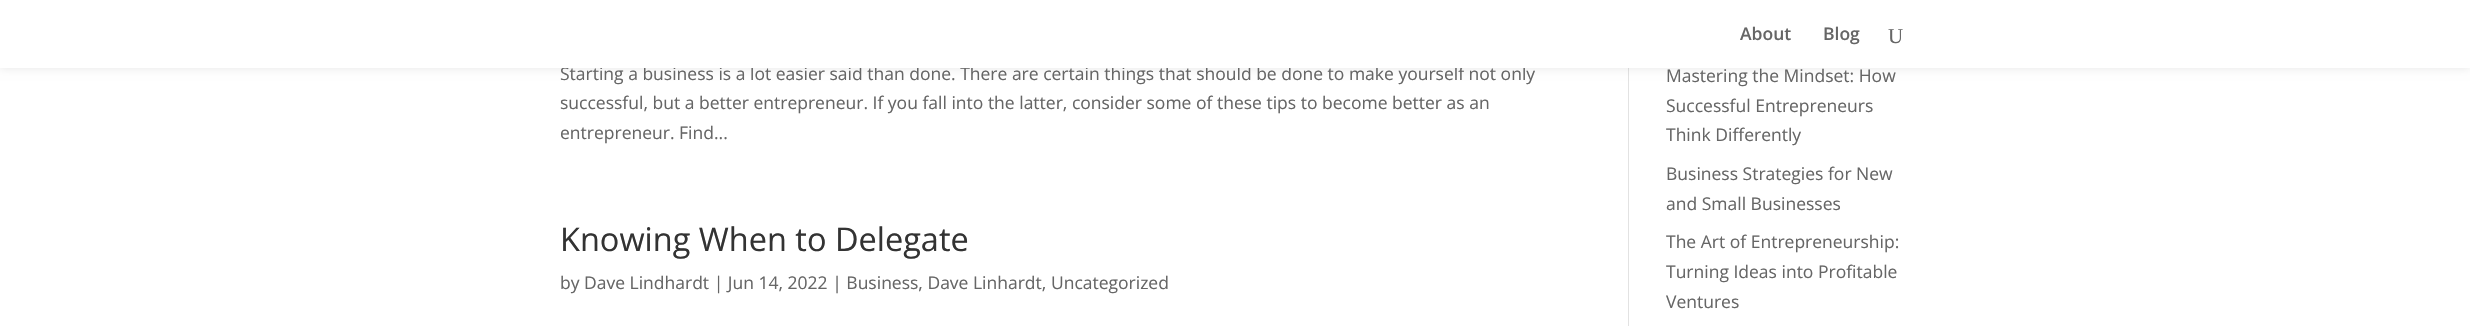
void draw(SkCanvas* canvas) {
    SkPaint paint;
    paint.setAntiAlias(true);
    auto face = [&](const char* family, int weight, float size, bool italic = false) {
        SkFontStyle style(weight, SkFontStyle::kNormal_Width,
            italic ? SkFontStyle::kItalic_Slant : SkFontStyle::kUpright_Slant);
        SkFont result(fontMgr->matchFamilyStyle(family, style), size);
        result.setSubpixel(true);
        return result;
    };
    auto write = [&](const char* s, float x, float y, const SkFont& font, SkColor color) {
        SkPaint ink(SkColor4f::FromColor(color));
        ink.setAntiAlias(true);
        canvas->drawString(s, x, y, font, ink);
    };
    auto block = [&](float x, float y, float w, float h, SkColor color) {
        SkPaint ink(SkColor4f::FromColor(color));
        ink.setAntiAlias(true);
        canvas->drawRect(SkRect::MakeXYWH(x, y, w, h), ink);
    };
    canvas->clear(SK_ColorWHITE);
    block(1628, 68, 1, 258, SkColorSetRGB(226, 226, 226));
    paint.setColor(SkColorSetARGB(26, 0, 0, 0));
    paint.setMaskFilter(SkMaskFilter::MakeBlur(kNormal_SkBlurStyle, 4.5f));
    canvas->drawRect(SkRect::MakeXYWH(0, 0, 2470, 68), paint);
    paint.setMaskFilter(nullptr);
    auto kFont1 = face("Open Sans", 400, 17.5f);
    write("Starting a business is a lot easier said than done. There are certain things that should be done to make yourself not only", 560, 80, kFont1, SkColorSetRGB(102, 102, 102));
    block(0, 0, 2470, 68, SK_ColorWHITE);
    auto kFont2 = face("Open Sans", 600, 17.5f);
    write("About", 1740, 40, kFont2, SkColorSetRGB(102, 102, 102));
    write("Blog", 1823, 40, kFont2, SkColorSetRGB(102, 102, 102));
    auto kFont3 = face("Liberation Serif", 400, 21);
    write("U", 1888, 43, kFont3, SkColorSetRGB(102, 102, 102));
    write("successful, but a better entrepreneur. If you fall into the latter, consider some of these tips to become better as an", 560, 109, kFont1, SkColorSetRGB(102, 102, 102));
    write("entrepreneur. Find...", 560, 139, kFont1, SkColorSetRGB(102, 102, 102));
    auto kFont4 = face("Open Sans", 400, 32.5f);
    write("Knowing When to Delegate", 560, 251, kFont4, SkColorSetRGB(51, 51, 51));
    write("by Dave Lindhardt | Jun 14, 2022 | Business, Dave Linhardt, Uncategorized", 560, 289, kFont1, SkColorSetRGB(102, 102, 102));
    write("Mastering the Mindset: How", 1666, 82, kFont1, SkColorSetRGB(102, 102, 102));
    write("Successful Entrepreneurs", 1666, 112, kFont1, SkColorSetRGB(102, 102, 102));
    write("Think Differently", 1666, 141, kFont1, SkColorSetRGB(102, 102, 102));
    write("Business Strategies for New", 1666, 180, kFont1, SkColorSetRGB(102, 102, 102));
    write("and Small Businesses", 1666, 210, kFont1, SkColorSetRGB(102, 102, 102));
    write("The Art of Entrepreneurship:", 1666, 248, kFont1, SkColorSetRGB(102, 102, 102));
    write("Turning Ideas into Profitable", 1666, 278, kFont1, SkColorSetRGB(102, 102, 102));
    write("Ventures", 1666, 308, kFont1, SkColorSetRGB(102, 102, 102));
}
